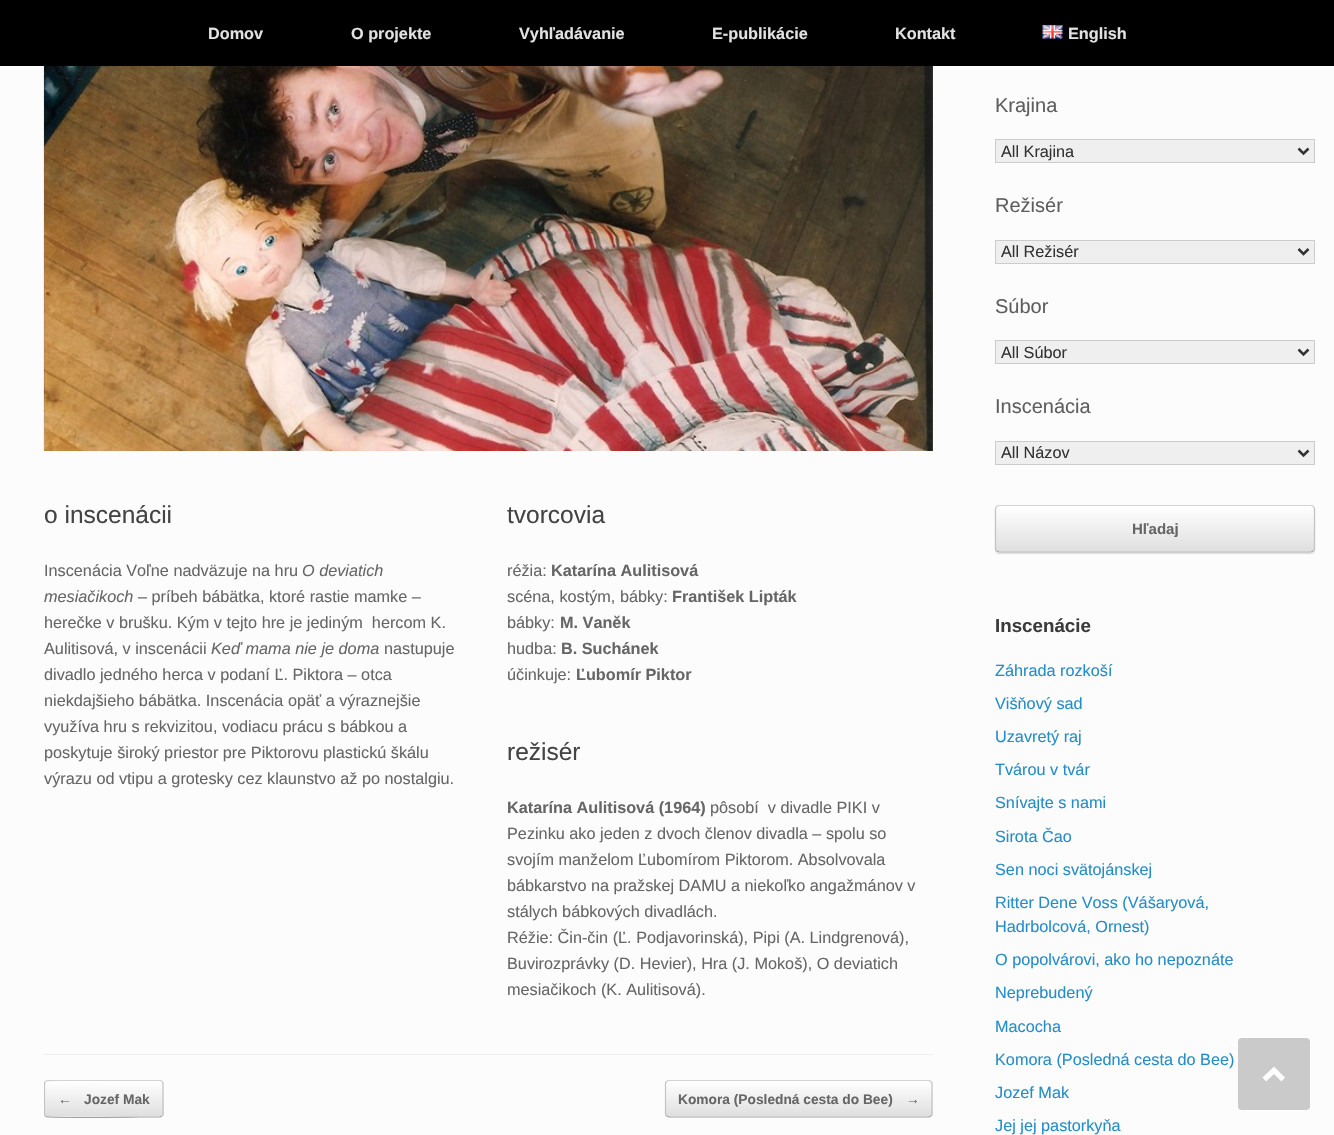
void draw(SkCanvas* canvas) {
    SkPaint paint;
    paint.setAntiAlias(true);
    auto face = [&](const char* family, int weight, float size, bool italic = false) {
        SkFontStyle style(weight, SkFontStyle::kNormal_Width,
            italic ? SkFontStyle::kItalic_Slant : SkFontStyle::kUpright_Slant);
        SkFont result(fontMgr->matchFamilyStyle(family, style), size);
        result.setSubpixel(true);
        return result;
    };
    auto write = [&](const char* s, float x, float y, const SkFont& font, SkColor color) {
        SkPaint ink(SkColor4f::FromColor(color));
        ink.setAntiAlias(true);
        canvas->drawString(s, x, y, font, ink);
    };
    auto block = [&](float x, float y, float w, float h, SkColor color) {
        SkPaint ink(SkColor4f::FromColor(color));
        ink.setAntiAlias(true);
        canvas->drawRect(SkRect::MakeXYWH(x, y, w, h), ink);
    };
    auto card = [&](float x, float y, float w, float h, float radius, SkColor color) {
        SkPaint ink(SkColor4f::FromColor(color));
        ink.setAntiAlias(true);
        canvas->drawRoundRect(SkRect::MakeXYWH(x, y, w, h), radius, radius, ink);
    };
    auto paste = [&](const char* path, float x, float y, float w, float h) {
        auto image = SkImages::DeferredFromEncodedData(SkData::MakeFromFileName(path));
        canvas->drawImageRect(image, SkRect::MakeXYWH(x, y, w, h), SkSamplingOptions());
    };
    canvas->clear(SkColorSetRGB(252, 252, 252));
    block(0, 0, 1334, 66, SK_ColorBLACK);
    auto kFont1 = face("Liberation Sans", 700, 16.25f);
    write("Domov", 208, 39, kFont1, SkColorSetRGB(226, 226, 226));
    write("O projekte", 351, 39, kFont1, SkColorSetRGB(226, 226, 226));
    write("Vyhľadávanie", 519, 39, kFont1, SkColorSetRGB(226, 226, 226));
    write("E-publikácie", 712, 39, kFont1, SkColorSetRGB(226, 226, 226));
    write("Kontakt", 895, 39, kFont1, SkColorSetRGB(226, 226, 226));
    paste("pic1.png", 1042, 25, 21, 14);
    write("English", 1068, 39, kFont1, SkColorSetRGB(226, 226, 226));
    block(44, 1054, 889, 1, SkColorSetRGB(238, 238, 238));
    block(932, 66, 1, 385, SkColorSetRGB(51, 51, 51));
    paste("pic2.png", 43, 66, 890, 385);
    auto kFont2 = face("Liberation Sans", 400, 24.5f);
    write("o inscenácii", 44, 523, kFont2, SkColorSetRGB(68, 68, 68));
    auto kFont3 = face("Liberation Sans", 400, 16.25f);
    write("Inscenácia Voľne nadväzuje na hru", 44, 576, kFont3, SkColorSetRGB(102, 102, 102));
    auto kFont4 = face("Liberation Sans", 400, 16.25f, true);
    write("O deviatich", 302, 576, kFont4, SkColorSetRGB(102, 102, 102));
    write("mesiačikoch", 44, 602, kFont4, SkColorSetRGB(102, 102, 102));
    write("– príbeh bábätka, ktoré rastie mamke –", 138, 602, kFont3, SkColorSetRGB(102, 102, 102));
    write("herečke v brušku. Kým v tejto hre je jediným  hercom K.", 44, 628, kFont3, SkColorSetRGB(102, 102, 102));
    write("Aulitisová, v inscenácii", 44, 654, kFont3, SkColorSetRGB(102, 102, 102));
    write("Keď mama nie je doma", 211, 654, kFont4, SkColorSetRGB(102, 102, 102));
    write("nastupuje", 384, 654, kFont3, SkColorSetRGB(102, 102, 102));
    write("divadlo jedného herca v podaní Ľ. Piktora – otca", 44, 680, kFont3, SkColorSetRGB(102, 102, 102));
    write("niekdajšieho bábätka. Inscenácia opäť a výraznejšie", 44, 706, kFont3, SkColorSetRGB(102, 102, 102));
    write("využíva hru s rekvizitou, vodiacu prácu s bábkou a", 44, 732, kFont3, SkColorSetRGB(102, 102, 102));
    write("poskytuje široký priestor pre Piktorovu plastickú škálu", 44, 758, kFont3, SkColorSetRGB(102, 102, 102));
    write("výrazu od vtipu a grotesky cez klaunstvo až po nostalgiu.", 44, 784, kFont3, SkColorSetRGB(102, 102, 102));
    write("tvorcovia", 507, 523, kFont2, SkColorSetRGB(68, 68, 68));
    write("réžia:", 507, 576, kFont3, SkColorSetRGB(102, 102, 102));
    write("Katarína Aulitisová", 551, 576, kFont1, SkColorSetRGB(102, 102, 102));
    write("scéna, kostým, bábky:", 507, 602, kFont3, SkColorSetRGB(102, 102, 102));
    write("František Lipták", 672, 602, kFont1, SkColorSetRGB(102, 102, 102));
    write("bábky:", 507, 628, kFont3, SkColorSetRGB(102, 102, 102));
    write("M. Vaněk", 560, 628, kFont1, SkColorSetRGB(102, 102, 102));
    write("hudba:", 507, 654, kFont3, SkColorSetRGB(102, 102, 102));
    write("B. Suchánek", 561, 654, kFont1, SkColorSetRGB(102, 102, 102));
    write("účinkuje:", 507, 680, kFont3, SkColorSetRGB(102, 102, 102));
    write("Ľubomír Piktor", 576, 680, kFont1, SkColorSetRGB(102, 102, 102));
    write("režisér", 507, 760, kFont2, SkColorSetRGB(68, 68, 68));
    write("Katarína Aulitisová (1964)", 507, 813, kFont1, SkColorSetRGB(102, 102, 102));
    write("pôsobí  v divadle PIKI v", 710, 813, kFont3, SkColorSetRGB(102, 102, 102));
    write("Pezinku ako jeden z dvoch členov divadla – spolu so", 507, 839, kFont3, SkColorSetRGB(102, 102, 102));
    write("svojím manželom Ľubomírom Piktorom. Absolvovala", 507, 865, kFont3, SkColorSetRGB(102, 102, 102));
    write("bábkarstvo na pražskej DAMU a niekoľko angažmánov v", 507, 891, kFont3, SkColorSetRGB(102, 102, 102));
    write("stálych bábkových divadlách.", 507, 917, kFont3, SkColorSetRGB(102, 102, 102));
    write("Réžie: Čin-čin (Ľ. Podjavorinská), Pipi (A. Lindgrenová),", 507, 943, kFont3, SkColorSetRGB(102, 102, 102));
    write("Buvirozprávky (D. Hevier), Hra (J. Mokoš), O deviatich", 507, 969, kFont3, SkColorSetRGB(102, 102, 102));
    write("mesiačikoch (K. Aulitisová).", 507, 995, kFont3, SkColorSetRGB(102, 102, 102));
    canvas->save();
    canvas->clipPath(SkPathBuilder().moveTo(48, 1080).lineTo(160, 1080).cubicTo(162, 1080, 164, 1082, 164, 1084).lineTo(164, 1114).cubicTo(164, 1116, 162, 1118, 160, 1118).lineTo(48, 1118).cubicTo(46, 1118, 44, 1116, 44, 1114).lineTo(44, 1084).cubicTo(44, 1082, 46, 1080, 48, 1080).close().detach(), true);
    {
        const SkColor colors[] = {SkColorSetRGB(223, 223, 223), SK_ColorWHITE};
        const float stops[] = {0, 1};
        const SkPoint ends[] = {{45, 1081}, {45, 1046}};
        paint.setShader(SkGradientShader::MakeLinear(ends, colors, stops, 2, SkTileMode::kClamp));
        paint.setAlpha(255);
    }
    canvas->drawRect(SkRect::MakeXYWH(44, 1080, 120, 1), paint);
    {
        const SkColor colors[] = {SkColorSetRGB(223, 223, 223), SK_ColorWHITE};
        const float stops[] = {0, 1};
        const SkPoint ends[] = {{45, 1116}, {45, 1081}};
        paint.setShader(SkGradientShader::MakeLinear(ends, colors, stops, 2, SkTileMode::kClamp));
        paint.setAlpha(255);
    }
    canvas->drawRect(SkRect::MakeXYWH(44, 1081, 120, 35), paint);
    {
        const SkColor colors[] = {SkColorSetRGB(223, 223, 223), SK_ColorWHITE};
        const float stops[] = {0, 1};
        const SkPoint ends[] = {{45, 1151}, {45, 1116}};
        paint.setShader(SkGradientShader::MakeLinear(ends, colors, stops, 2, SkTileMode::kClamp));
        paint.setAlpha(255);
    }
    canvas->drawRect(SkRect::MakeXYWH(44, 1116, 120, 2), paint);
    canvas->restore();
    canvas->save();
    canvas->clipRect(SkRect::MakeXYWH(44, 1080, 889, 38));
    paint.setStyle(SkPaint::kStroke_Style);
    paint.setStrokeWidth(1.2f);
    paint.setShader(nullptr);
    paint.setColor(SkColorSetRGB(210, 210, 210));
    canvas->drawPath(SkPathBuilder().moveTo(45.5f, 1081.5f).lineTo(46, 1081).cubicTo(48, 1079.5f, 131.5f, 1080.5f, 141, 1080.5f).lineTo(160, 1080.5f).lineTo(162, 1081.5f).detach(), paint);
    canvas->restore();
    paint.setColor(SkColorSetRGB(195, 195, 195));
    canvas->drawPath(SkPathBuilder().moveTo(162, 1081.5f).cubicTo(163, 1082, 163, 1083, 163, 1084).lineTo(163, 1114).cubicTo(163, 1114.5f, 163, 1115.5f, 162, 1116).detach(), paint);
    paint.setColor(SkColorSetRGB(159, 159, 159));
    canvas->drawPath(SkPathBuilder().moveTo(162, 1116).lineTo(160, 1117).lineTo(141, 1117).cubicTo(131.5f, 1117, 48, 1118, 46, 1116.5f).lineTo(45.5f, 1116).detach(), paint);
    canvas->save();
    canvas->clipRect(SkRect::MakeXYWH(44, 1080, 889, 38));
    paint.setColor(SkColorSetRGB(195, 195, 195));
    canvas->drawPath(SkPathBuilder().moveTo(45.5f, 1116).cubicTo(44.5f, 1115.5f, 44.5f, 1114.5f, 44.5f, 1114).lineTo(44.5f, 1084).cubicTo(44.5f, 1083, 44.5f, 1082, 45.5f, 1081.5f).detach(), paint);
    canvas->restore();
    auto kFont5 = face("Liberation Sans", 700, 13.75f);
    write("←", 58, 1104, kFont5, SkColorSetRGB(102, 102, 102));
    write("Jozef Mak", 84, 1104, kFont5, SkColorSetRGB(102, 102, 102));
    canvas->save();
    canvas->clipPath(SkPathBuilder().moveTo(669, 1080).lineTo(929, 1080).cubicTo(931, 1080, 933, 1082, 933, 1084).lineTo(933, 1114).cubicTo(933, 1116, 931, 1118, 929, 1118).lineTo(669, 1118).cubicTo(667, 1118, 665, 1116, 665, 1114).lineTo(665, 1084).cubicTo(665, 1082, 667, 1080, 669, 1080).close().detach(), true);
    paint.setStyle(SkPaint::kFill_Style);
    {
        const SkColor colors[] = {SkColorSetRGB(223, 223, 223), SK_ColorWHITE};
        const float stops[] = {0, 1};
        const SkPoint ends[] = {{666, 1081}, {666, 1046}};
        paint.setShader(SkGradientShader::MakeLinear(ends, colors, stops, 2, SkTileMode::kClamp));
        paint.setAlpha(255);
    }
    canvas->drawRect(SkRect::MakeXYWH(665, 1080, 268, 1), paint);
    {
        const SkColor colors[] = {SkColorSetRGB(223, 223, 223), SK_ColorWHITE};
        const float stops[] = {0, 1};
        const SkPoint ends[] = {{666, 1116}, {666, 1081}};
        paint.setShader(SkGradientShader::MakeLinear(ends, colors, stops, 2, SkTileMode::kClamp));
        paint.setAlpha(255);
    }
    canvas->drawRect(SkRect::MakeXYWH(665, 1081, 268, 35), paint);
    {
        const SkColor colors[] = {SkColorSetRGB(223, 223, 223), SK_ColorWHITE};
        const float stops[] = {0, 1};
        const SkPoint ends[] = {{666, 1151}, {666, 1116}};
        paint.setShader(SkGradientShader::MakeLinear(ends, colors, stops, 2, SkTileMode::kClamp));
        paint.setAlpha(255);
    }
    canvas->drawRect(SkRect::MakeXYWH(665, 1116, 268, 2), paint);
    canvas->restore();
    canvas->save();
    canvas->clipRect(SkRect::MakeXYWH(44, 1080, 889, 38));
    paint.setStyle(SkPaint::kStroke_Style);
    paint.setShader(nullptr);
    paint.setColor(SkColorSetRGB(210, 210, 210));
    canvas->drawPath(SkPathBuilder().moveTo(666.5f, 1081.5f).lineTo(669, 1080.5f).lineTo(929, 1080.5f).lineTo(931, 1081.5f).detach(), paint);
    canvas->restore();
    paint.setColor(SkColorSetRGB(195, 195, 195));
    canvas->drawPath(SkPathBuilder().moveTo(931, 1081.5f).cubicTo(931.5f, 1082, 932, 1083, 932, 1084).lineTo(932, 1114).cubicTo(932, 1114.5f, 931.5f, 1115.5f, 931, 1116).detach(), paint);
    paint.setColor(SkColorSetRGB(159, 159, 159));
    canvas->drawPath(SkPathBuilder().moveTo(931, 1116).lineTo(929, 1117).lineTo(669, 1117).lineTo(666.5f, 1116).detach(), paint);
    paint.setColor(SkColorSetRGB(195, 195, 195));
    canvas->drawPath(SkPathBuilder().moveTo(666.5f, 1116).cubicTo(666, 1115.5f, 665.5f, 1114.5f, 665.5f, 1114).lineTo(665.5f, 1084).cubicTo(665.5f, 1083, 666, 1082, 666.5f, 1081.5f).detach(), paint);
    write("Komora (Posledná cesta do Bee)", 678, 1104, kFont5, SkColorSetRGB(102, 102, 102));
    write("→", 906, 1104, kFont5, SkColorSetRGB(102, 102, 102));
    auto kFont6 = face("Liberation Sans", 400, 20);
    write("Krajina", 995, 112, kFont6, SkColorSetRGB(94, 94, 94));
    paint.setStyle(SkPaint::kFill_Style);
    paint.setColor(SkColorSetRGB(239, 239, 239));
    canvas->drawRect(SkRect::MakeXYWH(995.5f, 139.5f, 319, 23), paint);
    paint.setStyle(SkPaint::kStroke_Style);
    paint.setStrokeWidth(1);
    paint.setColor(SkColorSetRGB(204, 204, 204));
    canvas->drawRect(SkRect::MakeXYWH(995.5f, 139.5f, 319, 23), paint);
    paint.setStrokeWidth(2.5f);
    paint.setColor(SkColorSetRGB(51, 51, 51));
    canvas->drawPath(SkPathBuilder().moveTo(1298.5f, 148.5f).lineTo(1303.5f, 153.5f).lineTo(1308.5f, 148.5f).detach(), paint);
    write("All Krajina", 1001, 157, kFont3, SkColorSetRGB(51, 51, 51));
    write("Režisér", 995, 212, kFont6, SkColorSetRGB(94, 94, 94));
    paint.setStyle(SkPaint::kFill_Style);
    paint.setColor(SkColorSetRGB(239, 239, 239));
    canvas->drawRect(SkRect::MakeXYWH(995.5f, 240.5f, 319, 23), paint);
    paint.setStyle(SkPaint::kStroke_Style);
    paint.setStrokeWidth(1);
    paint.setColor(SkColorSetRGB(204, 204, 204));
    canvas->drawRect(SkRect::MakeXYWH(995.5f, 240.5f, 319, 23), paint);
    paint.setStrokeWidth(2.5f);
    paint.setColor(SkColorSetRGB(51, 51, 51));
    canvas->drawPath(SkPathBuilder().moveTo(1298.5f, 249).lineTo(1303.5f, 254).lineTo(1308.5f, 249).detach(), paint);
    write("All Režisér", 1001, 257, kFont3, SkColorSetRGB(51, 51, 51));
    write("Súbor", 995, 313, kFont6, SkColorSetRGB(94, 94, 94));
    paint.setStyle(SkPaint::kFill_Style);
    paint.setColor(SkColorSetRGB(239, 239, 239));
    canvas->drawRect(SkRect::MakeXYWH(995.5f, 340.5f, 319, 23), paint);
    paint.setStyle(SkPaint::kStroke_Style);
    paint.setStrokeWidth(1);
    paint.setColor(SkColorSetRGB(204, 204, 204));
    canvas->drawRect(SkRect::MakeXYWH(995.5f, 340.5f, 319, 23), paint);
    paint.setStrokeWidth(2.5f);
    paint.setColor(SkColorSetRGB(51, 51, 51));
    canvas->drawPath(SkPathBuilder().moveTo(1298.5f, 349.5f).lineTo(1303.5f, 354.5f).lineTo(1308.5f, 349.5f).detach(), paint);
    write("All Súbor", 1001, 358, kFont3, SkColorSetRGB(51, 51, 51));
    write("Inscenácia", 995, 413, kFont6, SkColorSetRGB(94, 94, 94));
    paint.setStyle(SkPaint::kFill_Style);
    paint.setColor(SkColorSetRGB(239, 239, 239));
    canvas->drawRect(SkRect::MakeXYWH(995.5f, 441.5f, 319, 23), paint);
    paint.setStyle(SkPaint::kStroke_Style);
    paint.setStrokeWidth(1);
    paint.setColor(SkColorSetRGB(204, 204, 204));
    canvas->drawRect(SkRect::MakeXYWH(995.5f, 441.5f, 319, 23), paint);
    paint.setStrokeWidth(2.5f);
    paint.setColor(SkColorSetRGB(51, 51, 51));
    canvas->drawPath(SkPathBuilder().moveTo(1298.5f, 450.5f).lineTo(1303.5f, 455.5f).lineTo(1308.5f, 450.5f).detach(), paint);
    write("All Názov", 1001, 458, kFont3, SkColorSetRGB(51, 51, 51));
    paint.setStyle(SkPaint::kFill_Style);
    paint.setColor(SkColorSetARGB(31, 0, 0, 0));
    paint.setMaskFilter(SkMaskFilter::MakeBlur(kNormal_SkBlurStyle, 0.5f));
    canvas->drawRoundRect(SkRect::MakeXYWH(995, 506, 320, 48), 4, 4, paint);
    paint.setMaskFilter(nullptr);
    canvas->save();
    canvas->clipPath(SkPathBuilder().moveTo(999, 505).lineTo(1311, 505).cubicTo(1313, 505, 1315, 507, 1315, 509).lineTo(1315, 549).cubicTo(1315, 551, 1313, 553, 1311, 553).lineTo(999, 553).cubicTo(997, 553, 995, 551, 995, 549).lineTo(995, 509).cubicTo(995, 507, 997, 505, 999, 505).close().detach(), true);
    {
        const SkColor colors[] = {SkColorSetRGB(223, 223, 223), SK_ColorWHITE};
        const float stops[] = {0, 1};
        const SkPoint ends[] = {{996, 506}, {996, 461}};
        paint.setShader(SkGradientShader::MakeLinear(ends, colors, stops, 2, SkTileMode::kClamp));
        paint.setAlpha(255);
    }
    canvas->drawRect(SkRect::MakeXYWH(995, 505, 320, 1), paint);
    {
        const SkColor colors[] = {SkColorSetRGB(223, 223, 223), SK_ColorWHITE};
        const float stops[] = {0, 1};
        const SkPoint ends[] = {{996, 551}, {996, 506}};
        paint.setShader(SkGradientShader::MakeLinear(ends, colors, stops, 2, SkTileMode::kClamp));
        paint.setAlpha(255);
    }
    canvas->drawRect(SkRect::MakeXYWH(995, 506, 320, 45), paint);
    {
        const SkColor colors[] = {SkColorSetRGB(223, 223, 223), SK_ColorWHITE};
        const float stops[] = {0, 1};
        const SkPoint ends[] = {{996, 596}, {996, 551}};
        paint.setShader(SkGradientShader::MakeLinear(ends, colors, stops, 2, SkTileMode::kClamp));
        paint.setAlpha(255);
    }
    canvas->drawRect(SkRect::MakeXYWH(995, 551, 320, 2), paint);
    canvas->restore();
    paint.setStyle(SkPaint::kStroke_Style);
    paint.setStrokeWidth(1.2f);
    paint.setShader(nullptr);
    paint.setColor(SkColorSetRGB(210, 210, 210));
    canvas->drawPath(SkPathBuilder().moveTo(996.5f, 506.5f).lineTo(999, 505.5f).lineTo(1311, 505.5f).lineTo(1313.5f, 506.5f).detach(), paint);
    paint.setColor(SkColorSetRGB(195, 195, 195));
    canvas->drawPath(SkPathBuilder().moveTo(1313.5f, 506.5f).lineTo(1314.5f, 509).lineTo(1314.5f, 549).lineTo(1313.5f, 551).detach(), paint);
    paint.setColor(SkColorSetRGB(159, 159, 159));
    canvas->drawPath(SkPathBuilder().moveTo(1313.5f, 551).lineTo(1311, 552).lineTo(999, 552).lineTo(996.5f, 551).detach(), paint);
    paint.setColor(SkColorSetRGB(195, 195, 195));
    canvas->drawPath(SkPathBuilder().moveTo(996.5f, 551).lineTo(995.5f, 549).lineTo(995.5f, 509).lineTo(996.5f, 506.5f).detach(), paint);
    auto kFont7 = face("Liberation Sans", 700, 15);
    write("Hľadaj", 1132, 534, kFont7, SkColorSetRGB(102, 102, 102));
    auto kFont8 = face("Liberation Sans", 700, 18.75f);
    write("Inscenácie", 995, 632, kFont8, SkColorSetRGB(59, 59, 59));
    write("Záhrada rozkoší", 995, 676, kFont3, SkColorSetRGB(36, 140, 200));
    write("Višňový sad", 995, 709, kFont3, SkColorSetRGB(36, 140, 200));
    write("Uzavretý raj", 995, 742, kFont3, SkColorSetRGB(36, 140, 200));
    write("Tvárou v tvár", 995, 775, kFont3, SkColorSetRGB(36, 140, 200));
    write("Snívajte s nami", 995, 808, kFont3, SkColorSetRGB(36, 140, 200));
    write("Sirota Čao", 995, 842, kFont3, SkColorSetRGB(36, 140, 200));
    write("Sen noci svätojánskej", 995, 875, kFont3, SkColorSetRGB(36, 140, 200));
    write("Ritter Dene Voss (Vášaryová,", 995, 908, kFont3, SkColorSetRGB(36, 140, 200));
    write("Hadrbolcová, Ornest)", 995, 932, kFont3, SkColorSetRGB(36, 140, 200));
    write("O popolvárovi, ako ho nepoznáte", 995, 965, kFont3, SkColorSetRGB(36, 140, 200));
    write("Neprebudený", 995, 998, kFont3, SkColorSetRGB(36, 140, 200));
    write("Macocha", 995, 1032, kFont3, SkColorSetRGB(36, 140, 200));
    write("Komora (Posledná cesta do Bee)", 995, 1065, kFont3, SkColorSetRGB(36, 140, 200));
    write("Jozef Mak", 995, 1098, kFont3, SkColorSetRGB(36, 140, 200));
    write("Jej jej pastorkyňa", 995, 1131, kFont3, SkColorSetRGB(36, 140, 200));
    card(1238, 1038, 72, 72, 4, SkColorSetRGB(202, 202, 202));
    paint.setStyle(SkPaint::kFill_Style);
    paint.setColor(SkColorSetRGB(253, 253, 253));
    canvas->drawPath(SkPathBuilder().moveTo(1285, 1077.5f).lineTo(1274, 1066.5f).lineTo(1262.5f, 1077.5f).lineTo(1266, 1081.5f).lineTo(1274, 1074).lineTo(1281.5f, 1081.5f).close().detach(), paint);
}
